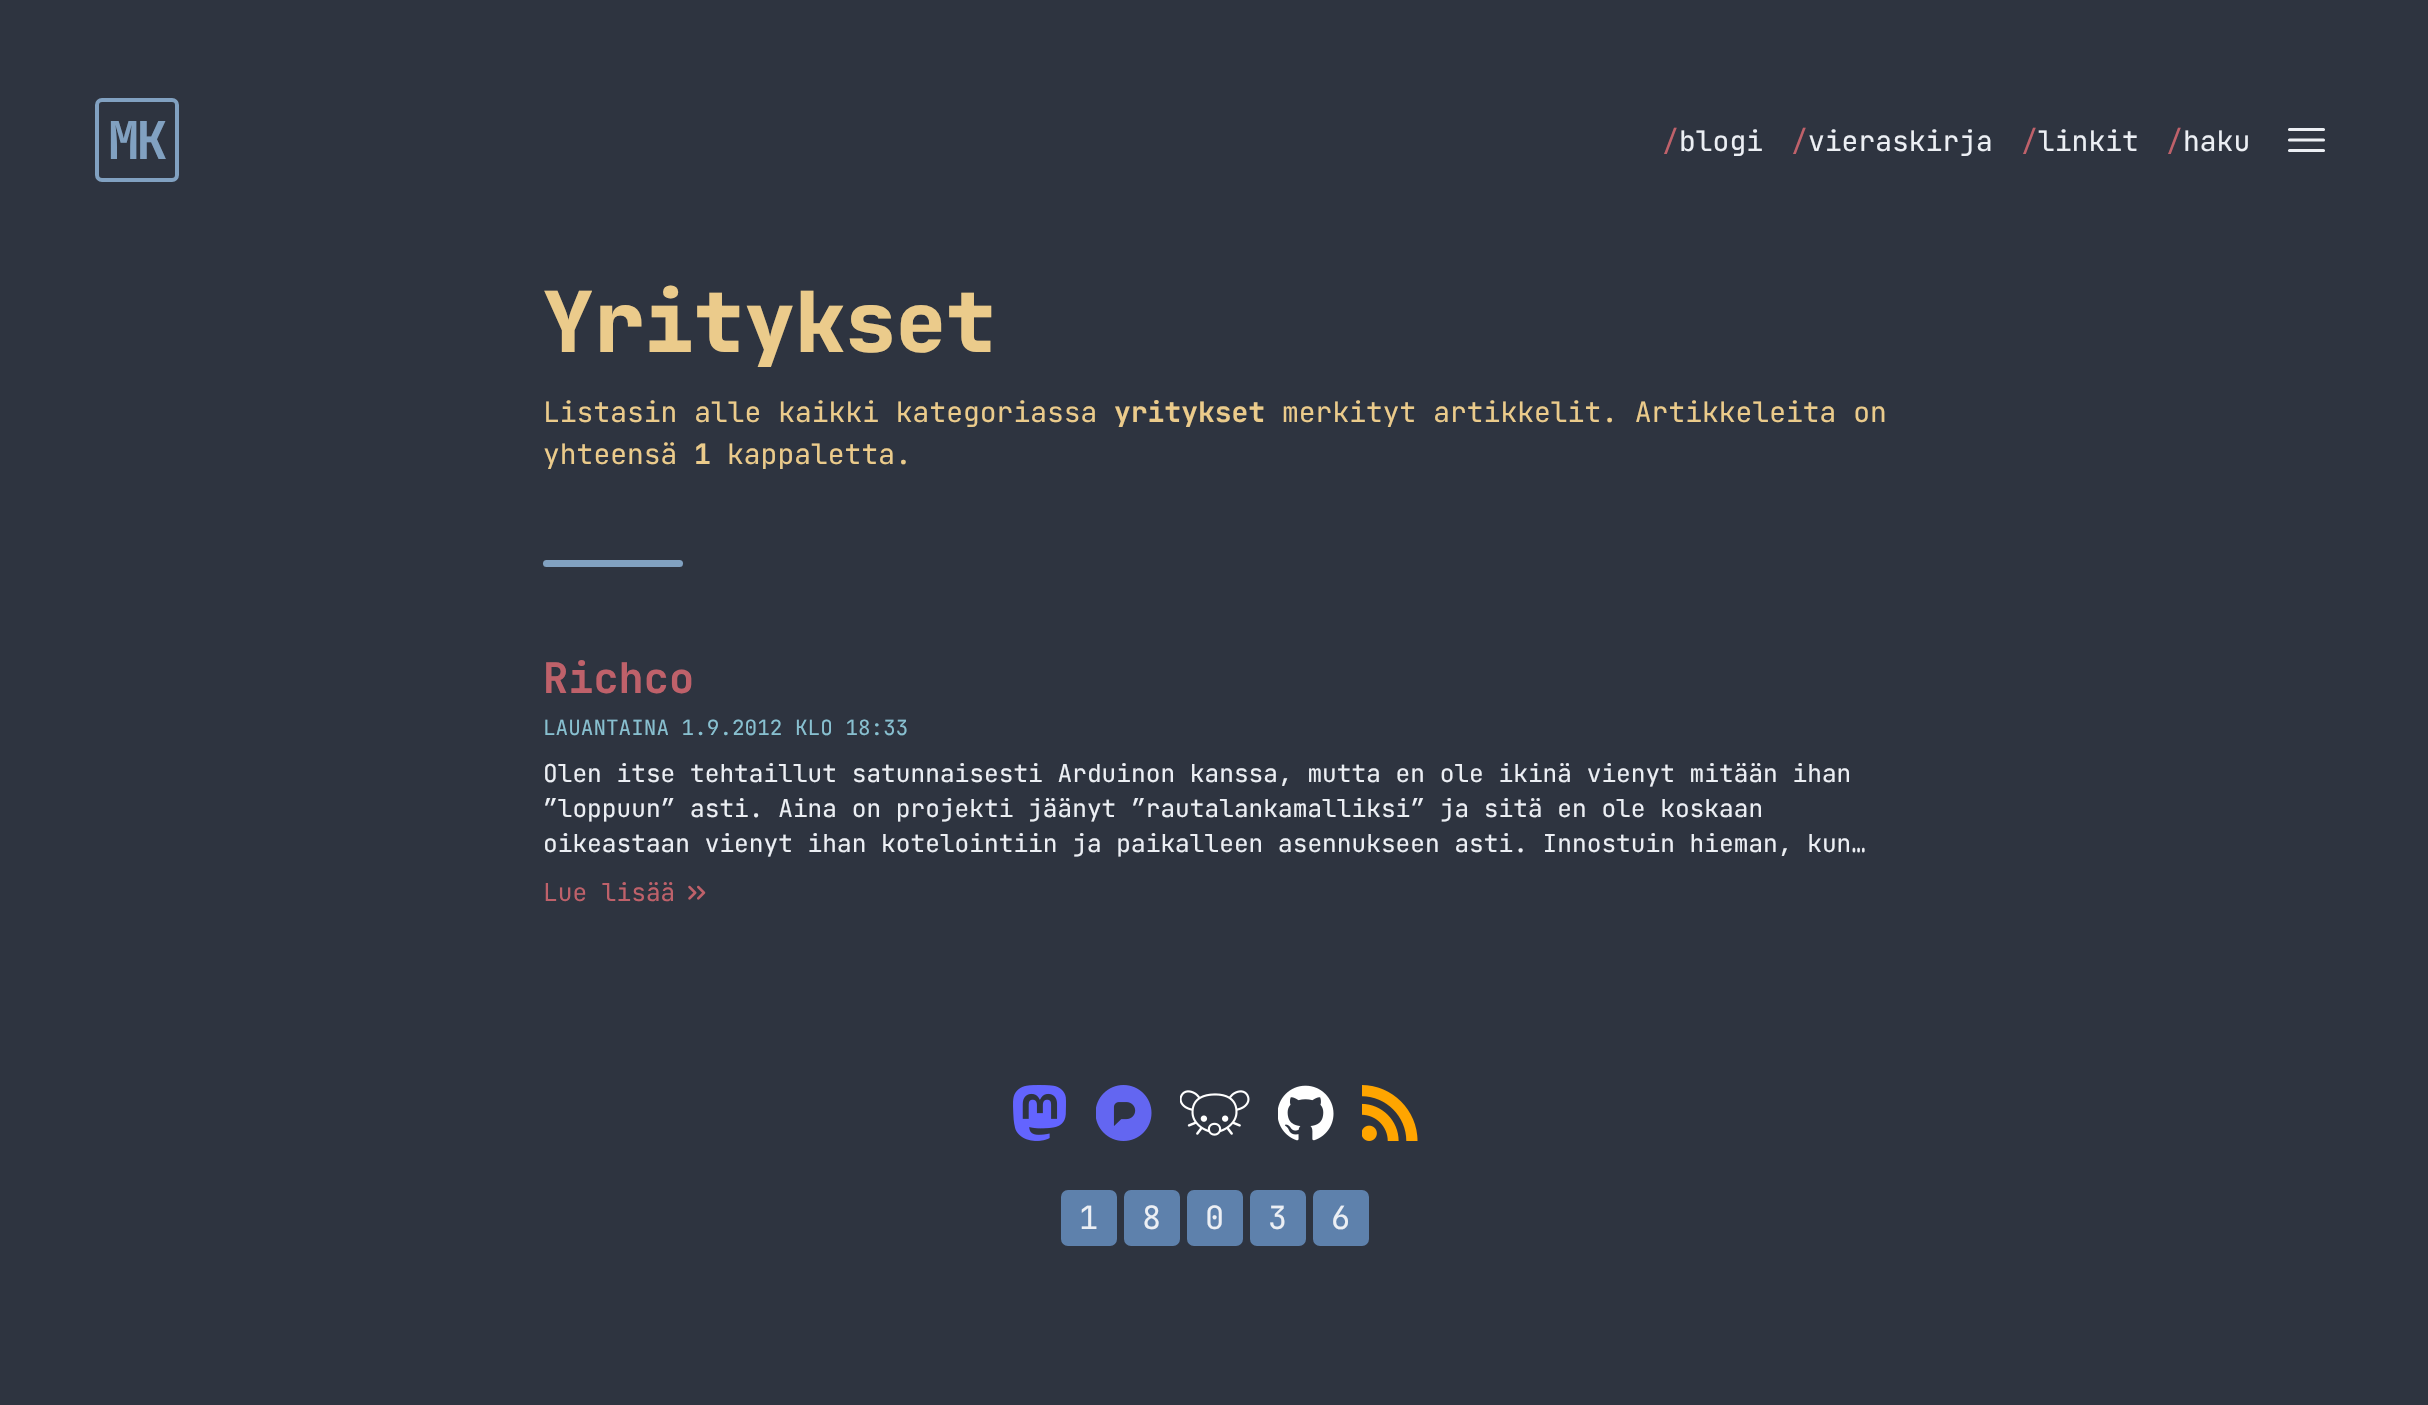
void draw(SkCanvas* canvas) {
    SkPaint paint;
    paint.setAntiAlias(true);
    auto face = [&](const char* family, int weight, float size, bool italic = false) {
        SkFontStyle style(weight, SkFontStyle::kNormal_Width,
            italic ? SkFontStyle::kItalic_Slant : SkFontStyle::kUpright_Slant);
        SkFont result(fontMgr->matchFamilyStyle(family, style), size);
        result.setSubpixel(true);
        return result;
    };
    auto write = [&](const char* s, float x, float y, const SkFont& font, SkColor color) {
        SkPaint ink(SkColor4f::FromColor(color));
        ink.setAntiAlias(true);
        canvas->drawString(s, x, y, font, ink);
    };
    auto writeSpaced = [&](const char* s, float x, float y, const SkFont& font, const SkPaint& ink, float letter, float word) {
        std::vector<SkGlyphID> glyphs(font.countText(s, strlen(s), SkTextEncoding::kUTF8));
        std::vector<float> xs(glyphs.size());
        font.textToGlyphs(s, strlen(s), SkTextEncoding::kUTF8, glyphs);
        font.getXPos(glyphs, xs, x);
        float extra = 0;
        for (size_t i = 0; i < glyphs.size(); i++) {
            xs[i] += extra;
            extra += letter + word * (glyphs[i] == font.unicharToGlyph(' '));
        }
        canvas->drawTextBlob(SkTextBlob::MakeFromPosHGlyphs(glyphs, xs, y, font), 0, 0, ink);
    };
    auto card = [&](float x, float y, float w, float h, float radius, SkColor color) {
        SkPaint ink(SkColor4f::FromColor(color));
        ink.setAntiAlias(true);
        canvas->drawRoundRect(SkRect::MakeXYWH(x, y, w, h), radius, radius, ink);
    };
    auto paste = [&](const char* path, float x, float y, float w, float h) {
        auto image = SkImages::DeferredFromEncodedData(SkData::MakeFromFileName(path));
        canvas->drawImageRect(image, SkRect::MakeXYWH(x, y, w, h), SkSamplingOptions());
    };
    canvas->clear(SkColorSetRGB(46, 52, 64));
    paint.setStyle(SkPaint::kStroke_Style);
    paint.setStrokeWidth(4);
    paint.setColor(SkColorSetRGB(129, 161, 193));
    canvas->drawRoundRect(SkRect::MakeXYWH(97, 100, 80, 80), 5, 5, paint);
    auto kFont1 = face("JetBrains Mono", 700, 52);
    paint.setStyle(SkPaint::kFill_Style);
    writeSpaced("MK", 108, 159, kFont1, paint, -3, 0);
    auto kFont2 = face("JetBrains Mono", 400, 28);
    write("/", 1662, 151, kFont2, SkColorSetRGB(191, 97, 106));
    write("blogi", 1679, 151, kFont2, SkColorSetRGB(236, 239, 244));
    write("/", 1791, 151, kFont2, SkColorSetRGB(191, 97, 106));
    write("vieraskirja", 1808, 151, kFont2, SkColorSetRGB(236, 239, 244));
    write("/", 2021, 151, kFont2, SkColorSetRGB(191, 97, 106));
    write("linkit", 2038, 151, kFont2, SkColorSetRGB(236, 239, 244));
    write("/", 2166, 151, kFont2, SkColorSetRGB(191, 97, 106));
    write("haku", 2183, 151, kFont2, SkColorSetRGB(236, 239, 244));
    paint.setStyle(SkPaint::kStroke_Style);
    paint.setStrokeWidth(3.1f);
    paint.setStrokeCap(SkPaint::kRound_Cap);
    paint.setStrokeJoin(SkPaint::kRound_Join);
    paint.setColor(SkColorSetRGB(236, 239, 244));
    canvas->drawPath(SkPathBuilder().moveTo(2289.5f, 129.5f).lineTo(2323.5f, 129.5f).moveTo(2289.5f, 140).lineTo(2323.5f, 140).moveTo(2289.5f, 150.5f).lineTo(2323.5f, 150.5f).detach(), paint);
    auto kFont3 = face("JetBrains Mono", 800, 84);
    write("Yritykset", 543, 352, kFont3, SkColorSetRGB(235, 203, 139));
    write("Listasin alle kaikki kategoriassa", 543, 422, kFont2, SkColorSetRGB(235, 203, 139));
    auto kFont4 = face("JetBrains Mono", 700, 28);
    write("yritykset", 1114, 422, kFont4, SkColorSetRGB(235, 203, 139));
    write("merkityt artikkelit. Artikkeleita on", 1282, 422, kFont2, SkColorSetRGB(235, 203, 139));
    write("yhteensä", 543, 464, kFont2, SkColorSetRGB(235, 203, 139));
    write("1", 694, 464, kFont4, SkColorSetRGB(235, 203, 139));
    write("kappaletta.", 727, 464, kFont2, SkColorSetRGB(235, 203, 139));
    card(543, 560, 140, 7, 3.5f, SkColorSetRGB(129, 161, 193));
    auto kFont5 = face("JetBrains Mono", 700, 42);
    write("Richco", 543, 693, kFont5, SkColorSetRGB(191, 97, 106));
    auto kFont6 = face("JetBrains Mono", 400, 21);
    write("LAUANTAINA 1.9.2012 KLO 18:33", 543, 735, kFont6, SkColorSetRGB(136, 192, 208));
    auto kFont7 = face("JetBrains Mono", 400, 24.5f);
    write("Olen itse tehtaillut satunnaisesti Arduinon kanssa, mutta en ole ikinä vienyt mitään ihan", 543, 782, kFont7, SkColorSetRGB(236, 239, 244));
    write("”loppuun” asti. Aina on projekti jäänyt ”rautalankamalliksi” ja sitä en ole koskaan", 543, 817, kFont7, SkColorSetRGB(236, 239, 244));
    write("oikeastaan vienyt ihan kotelointiin ja paikalleen asennukseen asti. Innostuin hieman, kun…", 543, 852, kFont7, SkColorSetRGB(236, 239, 244));
    write("Lue lisää", 543, 901, kFont7, SkColorSetRGB(191, 97, 106));
    paste("pic1.png", 688, 885, 18, 15);
    paste("pic2.png", 1013, 1085, 53, 56);
    paste("pic3.png", 1096, 1085, 56, 56);
    paste("pic4.png", 1180, 1090, 70, 46);
    paste("pic5.png", 1278, 1085, 56, 56);
    paste("pic6.png", 1362, 1085, 56, 56);
    paint.setStyle(SkPaint::kFill_Style);
    paint.setColor(SkColorSetRGB(94, 129, 172));
    canvas->drawRoundRect(SkRect::MakeXYWH(1063, 1192, 52, 52), 5, 5, paint);
    paint.setStyle(SkPaint::kStroke_Style);
    paint.setStrokeWidth(4);
    paint.setStrokeCap(SkPaint::kButt_Cap);
    paint.setStrokeJoin(SkPaint::kMiter_Join);
    canvas->drawRoundRect(SkRect::MakeXYWH(1063, 1192, 52, 52), 5, 5, paint);
    auto kFont8 = face("JetBrains Mono", 400, 32);
    write("1", 1079, 1229, kFont8, SkColorSetRGB(236, 239, 244));
    paint.setStyle(SkPaint::kFill_Style);
    canvas->drawRoundRect(SkRect::MakeXYWH(1126, 1192, 52, 52), 5, 5, paint);
    paint.setStyle(SkPaint::kStroke_Style);
    canvas->drawRoundRect(SkRect::MakeXYWH(1126, 1192, 52, 52), 5, 5, paint);
    write("8", 1142, 1229, kFont8, SkColorSetRGB(236, 239, 244));
    paint.setStyle(SkPaint::kFill_Style);
    canvas->drawRoundRect(SkRect::MakeXYWH(1189, 1192, 52, 52), 5, 5, paint);
    paint.setStyle(SkPaint::kStroke_Style);
    canvas->drawRoundRect(SkRect::MakeXYWH(1189, 1192, 52, 52), 5, 5, paint);
    write("0", 1205, 1229, kFont8, SkColorSetRGB(236, 239, 244));
    paint.setStyle(SkPaint::kFill_Style);
    canvas->drawRoundRect(SkRect::MakeXYWH(1252, 1192, 52, 52), 5, 5, paint);
    paint.setStyle(SkPaint::kStroke_Style);
    canvas->drawRoundRect(SkRect::MakeXYWH(1252, 1192, 52, 52), 5, 5, paint);
    write("3", 1268, 1229, kFont8, SkColorSetRGB(236, 239, 244));
    paint.setStyle(SkPaint::kFill_Style);
    canvas->drawRoundRect(SkRect::MakeXYWH(1315, 1192, 52, 52), 5, 5, paint);
    paint.setStyle(SkPaint::kStroke_Style);
    canvas->drawRoundRect(SkRect::MakeXYWH(1315, 1192, 52, 52), 5, 5, paint);
    write("6", 1331, 1229, kFont8, SkColorSetRGB(236, 239, 244));
}
